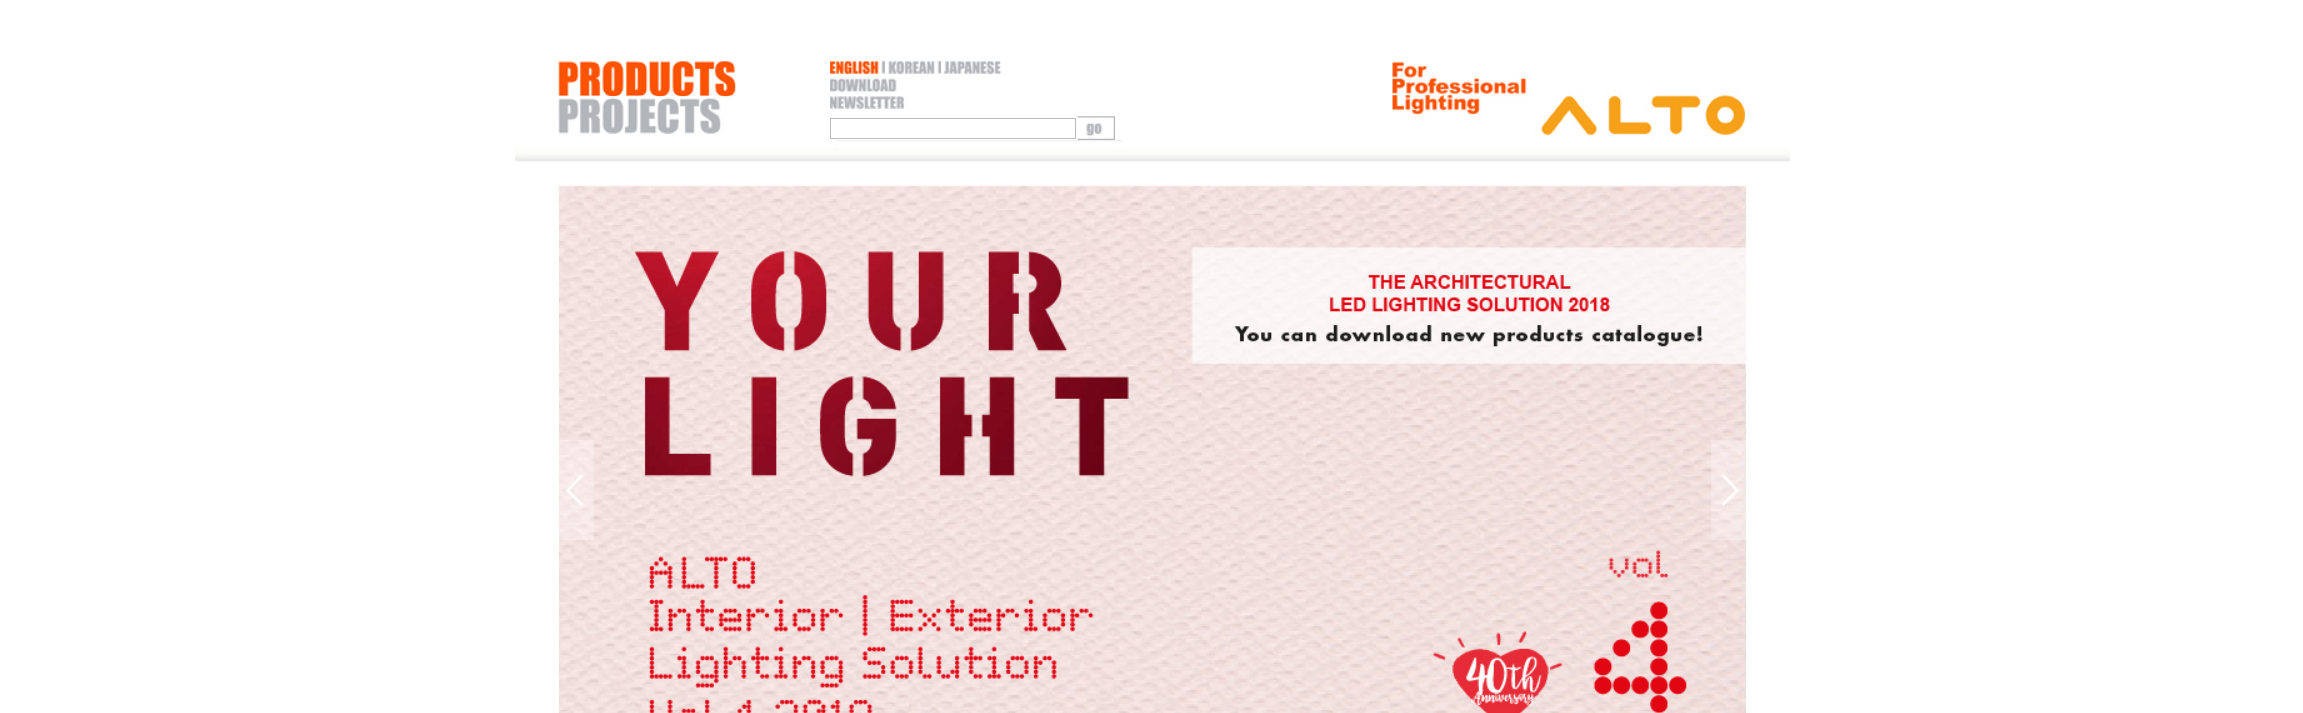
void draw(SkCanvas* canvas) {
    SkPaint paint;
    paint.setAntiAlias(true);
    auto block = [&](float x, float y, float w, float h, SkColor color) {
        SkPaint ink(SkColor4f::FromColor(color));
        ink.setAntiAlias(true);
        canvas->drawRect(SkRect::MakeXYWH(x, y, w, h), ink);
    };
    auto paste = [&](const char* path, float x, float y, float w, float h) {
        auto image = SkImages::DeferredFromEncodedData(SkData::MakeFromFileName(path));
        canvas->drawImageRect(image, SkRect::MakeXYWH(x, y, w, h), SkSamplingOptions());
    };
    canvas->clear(SK_ColorWHITE);
    paste("pic1.png", 558, 61, 179, 36);
    paste("pic2.png", 830, 61, 49, 15);
    paste("pic3.png", 881, 60, 4, 14);
    paste("pic4.png", 888, 61, 47, 14);
    paste("pic5.png", 937, 60, 5, 14);
    paste("pic6.png", 941, 61, 61, 14);
    paste("pic7.png", 1392, 61, 353, 75);
    block(736, 85, 1, 4, SkColorSetRGB(255, 254, 253));
    paste("pic8.png", 830, 78, 67, 15);
    paste("pic9.png", 558, 96, 174, 38);
    paste("pic10.png", 830, 96, 75, 14);
    paint.setStyle(SkPaint::kStroke_Style);
    paint.setStrokeWidth(1);
    paint.setColor(SkColorSetRGB(187, 187, 187));
    canvas->drawRect(SkRect::MakeXYWH(830.5f, 118.5f, 245, 20), paint);
    paste("pic11.png", 1077, 116, 38, 24);
    paste("pic12.png", 515, 140, 1275, 22);
    paste("pic13.png", 559, 185, 1188, 528);
}
